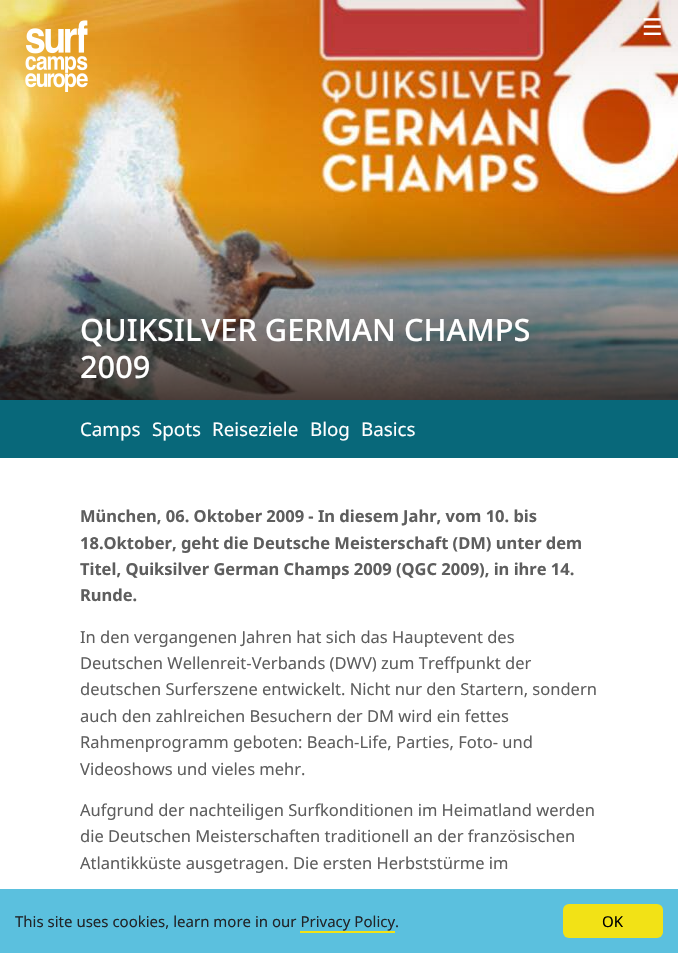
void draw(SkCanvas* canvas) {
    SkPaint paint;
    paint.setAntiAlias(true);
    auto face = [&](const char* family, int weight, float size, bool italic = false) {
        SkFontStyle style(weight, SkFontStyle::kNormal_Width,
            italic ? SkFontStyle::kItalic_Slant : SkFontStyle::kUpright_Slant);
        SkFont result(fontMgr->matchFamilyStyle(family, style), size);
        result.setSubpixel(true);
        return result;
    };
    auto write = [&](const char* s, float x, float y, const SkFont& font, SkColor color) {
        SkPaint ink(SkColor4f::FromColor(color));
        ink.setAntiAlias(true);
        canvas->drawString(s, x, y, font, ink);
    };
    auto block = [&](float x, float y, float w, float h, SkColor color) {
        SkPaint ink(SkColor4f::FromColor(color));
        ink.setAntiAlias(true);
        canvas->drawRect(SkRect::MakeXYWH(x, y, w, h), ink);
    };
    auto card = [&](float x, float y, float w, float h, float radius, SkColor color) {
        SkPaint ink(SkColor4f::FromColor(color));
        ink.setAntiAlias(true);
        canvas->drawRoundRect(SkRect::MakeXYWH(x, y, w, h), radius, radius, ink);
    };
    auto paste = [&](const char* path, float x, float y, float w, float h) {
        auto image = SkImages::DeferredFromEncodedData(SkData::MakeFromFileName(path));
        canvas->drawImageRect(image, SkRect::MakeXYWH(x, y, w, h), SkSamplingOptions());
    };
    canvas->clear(SK_ColorWHITE);
    paste("pic1.png", 0, 0, 678, 400);
    paste("pic2.png", 25, 20, 63, 72);
    auto kFont1 = face("DejaVu Sans", 400, 23);
    write("☰", 642, 35, kFont1, SK_ColorWHITE);
    auto kFont2 = face("Noto Sans", 500, 30.75f);
    write("QUIKSILVER GERMAN CHAMPS", 80, 341, kFont2, SK_ColorWHITE);
    write("2009", 80, 378, kFont2, SK_ColorWHITE);
    block(0, 400, 678, 58, SkColorSetRGB(8, 104, 122));
    auto kFont3 = face("Noto Sans", 400, 18.75f);
    write("Camps", 80, 436, kFont3, SK_ColorWHITE);
    write("Spots", 152, 436, kFont3, SK_ColorWHITE);
    write("Reiseziele", 212, 436, kFont3, SK_ColorWHITE);
    write("Blog", 310, 436, kFont3, SK_ColorWHITE);
    write("Basics", 361, 436, kFont3, SK_ColorWHITE);
    auto kFont4 = face("Noto Sans", 700, 16.5f);
    write("München, 06. Oktober 2009 - In diesem Jahr, vom 10. bis", 80, 522, kFont4, SkColorSetRGB(94, 94, 94));
    write("18.Oktober, geht die Deutsche Meisterschaft (DM) unter dem", 80, 549, kFont4, SkColorSetRGB(94, 94, 94));
    write("Titel, Quiksilver German Champs 2009 (QGC 2009), in ihre 14.", 80, 575, kFont4, SkColorSetRGB(94, 94, 94));
    write("Runde.", 80, 601, kFont4, SkColorSetRGB(94, 94, 94));
    auto kFont5 = face("Noto Sans", 400, 16.5f);
    write("In den vergangenen Jahren hat sich das Hauptevent des", 80, 643, kFont5, SkColorSetRGB(94, 94, 94));
    write("Deutschen Wellenreit-Verbands (DWV) zum Treffpunkt der", 80, 669, kFont5, SkColorSetRGB(94, 94, 94));
    write("deutschen Surferszene entwickelt. Nicht nur den Startern, sondern", 80, 695, kFont5, SkColorSetRGB(94, 94, 94));
    write("auch den zahlreichen Besuchern der DM wird ein fettes", 80, 722, kFont5, SkColorSetRGB(94, 94, 94));
    write("Rahmenprogramm geboten: Beach-Life, Parties, Foto- und", 80, 748, kFont5, SkColorSetRGB(94, 94, 94));
    write("Videoshows und vieles mehr.", 80, 775, kFont5, SkColorSetRGB(94, 94, 94));
    write("Aufgrund der nachteiligen Surfkonditionen im Heimatland werden", 80, 816, kFont5, SkColorSetRGB(94, 94, 94));
    write("die Deutschen Meisterschaften traditionell an der französischen", 80, 842, kFont5, SkColorSetRGB(94, 94, 94));
    write("Atlantikküste ausgetragen. Die ersten Herbststürme im", 80, 869, kFont5, SkColorSetRGB(94, 94, 94));
    block(0, 889, 678, 64, SkColorSetRGB(91, 192, 222));
    auto kFont6 = face("Noto Sans", 400, 15);
    write("This site uses cookies, learn more in our Privacy Policy.", 15, 927, kFont6, SkColorSetRGB(33, 37, 41));
    block(300, 931, 95, 2, SkColorSetRGB(242, 226, 22));
    card(563, 904, 100, 34, 6, SkColorSetRGB(242, 226, 22));
    write("OK", 602, 927, kFont6, SK_ColorBLACK);
}
